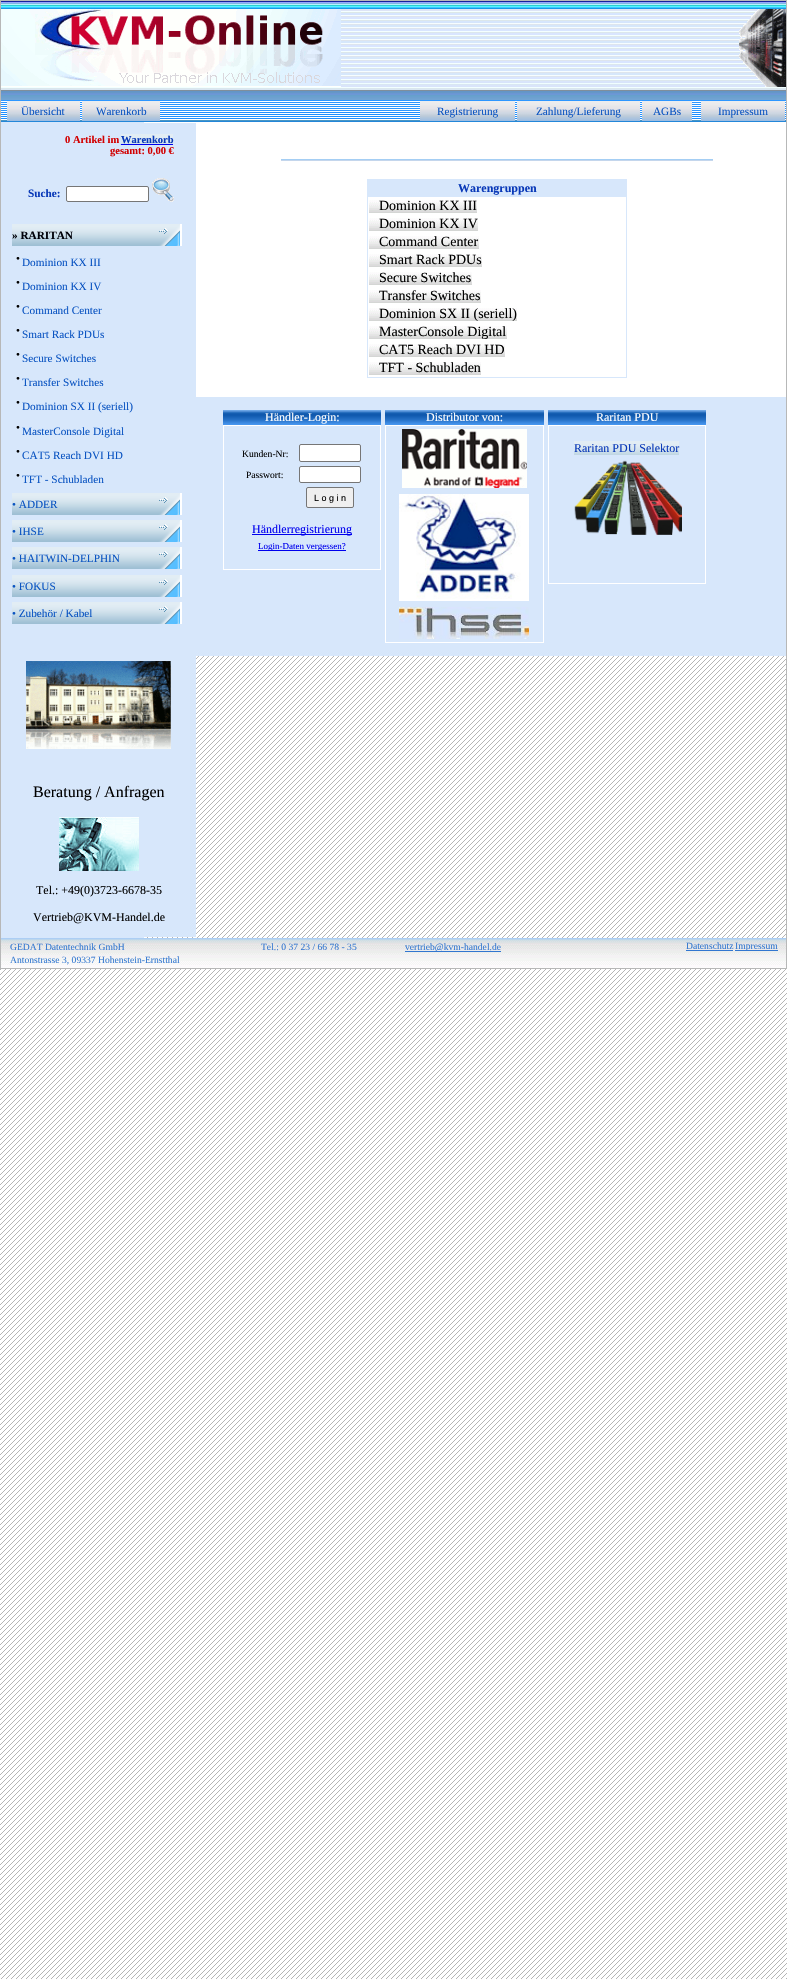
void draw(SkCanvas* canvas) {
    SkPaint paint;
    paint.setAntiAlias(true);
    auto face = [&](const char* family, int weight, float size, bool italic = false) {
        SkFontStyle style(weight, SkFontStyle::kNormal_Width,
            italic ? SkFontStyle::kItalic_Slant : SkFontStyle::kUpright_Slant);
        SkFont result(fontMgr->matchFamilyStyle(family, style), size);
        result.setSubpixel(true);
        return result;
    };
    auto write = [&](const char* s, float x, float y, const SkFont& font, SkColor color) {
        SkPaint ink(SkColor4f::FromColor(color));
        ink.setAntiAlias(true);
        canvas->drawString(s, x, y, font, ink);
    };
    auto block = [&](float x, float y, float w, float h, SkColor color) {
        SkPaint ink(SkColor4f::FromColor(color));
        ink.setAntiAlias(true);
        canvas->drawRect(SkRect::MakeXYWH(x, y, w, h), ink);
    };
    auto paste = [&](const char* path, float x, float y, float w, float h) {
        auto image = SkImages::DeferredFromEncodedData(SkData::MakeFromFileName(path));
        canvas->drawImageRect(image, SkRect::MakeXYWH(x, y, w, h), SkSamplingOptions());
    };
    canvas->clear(SK_ColorWHITE);
    paste("pic1.png", 0, 656, 787, 1323);
    paint.setStyle(SkPaint::kStroke_Style);
    paint.setStrokeWidth(1);
    paint.setColor(SkColorSetRGB(183, 184, 184));
    canvas->drawRect(SkRect::MakeXYWH(0.5f, 0.5f, 786, 968), paint);
    paste("pic2.png", 1, 1, 785, 99);
    paste("pic3.png", 1, 9, 340, 78);
    paste("pic4.png", 739, 9, 47, 78);
    paste("pic5.png", 1, 100, 785, 22);
    paste("pic6.png", 7, 101, 73, 20);
    auto kFont1 = face("Liberation Serif", 400, 11.25f);
    write("Übersicht", 21, 115, kFont1, SkColorSetRGB(10, 84, 194));
    paste("pic7.png", 82, 101, 78, 20);
    write("Warenkorb", 96, 115, kFont1, SkColorSetRGB(10, 84, 194));
    paste("pic8.png", 420, 101, 95, 20);
    write("Registrierung", 437, 115, kFont1, SkColorSetRGB(10, 84, 194));
    paste("pic9.png", 517, 101, 123, 20);
    write("Zahlung/Lieferung", 536, 115, kFont1, SkColorSetRGB(10, 84, 194));
    paste("pic10.png", 642, 101, 50, 20);
    write("AGBs", 653, 115, kFont1, SkColorSetRGB(10, 84, 194));
    paste("pic11.png", 701, 101, 84, 20);
    write("Impressum", 718, 115, kFont1, SkColorSetRGB(10, 84, 194));
    block(1, 122, 143, 816, SkColorSetRGB(215, 231, 251));
    block(144, 123, 52, 814, SkColorSetRGB(215, 231, 251));
    auto kFont2 = face("Liberation Serif", 700, 10.5f);
    write("0 Artikel im", 65, 143, kFont2, SkColorSetRGB(210, 0, 0));
    paste("pic12.png", 120, 134, 53, 11);
    write("Warenkorb", 121, 143, kFont2, SkColorSetRGB(8, 56, 184));
    write("gesamt: 0,00 €", 110, 154, kFont2, SkColorSetRGB(210, 0, 0));
    auto kFont3 = face("Liberation Serif", 700, 11.25f);
    write("Suche:", 28, 197, kFont3, SkColorSetRGB(8, 56, 184));
    paint.setStyle(SkPaint::kFill_Style);
    paint.setColor(SK_ColorWHITE);
    canvas->drawRoundRect(SkRect::MakeXYWH(66.5f, 186.5f, 82, 15), 1.5f, 1.5f, paint);
    paint.setStyle(SkPaint::kStroke_Style);
    paint.setColor(SkColorSetRGB(118, 118, 118));
    canvas->drawRoundRect(SkRect::MakeXYWH(66.5f, 186.5f, 82, 15), 1.5f, 1.5f, paint);
    paste("pic13.png", 152, 178, 22, 24);
    paste("pic14.png", 12, 224, 170, 22);
    write("» RARITAN", 12, 239, kFont3, SkColorSetRGB(0, 1, 9));
    write("•", 16, 262, kFont1, SK_ColorBLACK);
    write("Dominion KX III", 22, 266, kFont1, SkColorSetRGB(10, 84, 194));
    write("•", 16, 286, kFont1, SK_ColorBLACK);
    write("Dominion KX IV", 22, 290, kFont1, SkColorSetRGB(10, 84, 194));
    write("•", 16, 310, kFont1, SK_ColorBLACK);
    write("Command Center", 22, 314, kFont1, SkColorSetRGB(10, 84, 194));
    write("•", 16, 334, kFont1, SK_ColorBLACK);
    write("Smart Rack PDUs", 22, 338, kFont1, SkColorSetRGB(10, 84, 194));
    write("•", 16, 358, kFont1, SK_ColorBLACK);
    write("Secure Switches", 22, 362, kFont1, SkColorSetRGB(10, 84, 194));
    write("•", 16, 382, kFont1, SK_ColorBLACK);
    write("Transfer Switches", 22, 386, kFont1, SkColorSetRGB(10, 84, 194));
    write("•", 16, 406, kFont1, SK_ColorBLACK);
    write("Dominion SX II (seriell)", 22, 410, kFont1, SkColorSetRGB(10, 84, 194));
    write("•", 16, 431, kFont1, SK_ColorBLACK);
    write("MasterConsole Digital", 22, 435, kFont1, SkColorSetRGB(10, 84, 194));
    write("•", 16, 455, kFont1, SK_ColorBLACK);
    write("CAT5 Reach DVI HD", 22, 459, kFont1, SkColorSetRGB(10, 84, 194));
    write("•", 16, 479, kFont1, SK_ColorBLACK);
    write("TFT - Schubladen", 22, 483, kFont1, SkColorSetRGB(10, 84, 194));
    paste("pic14.png", 12, 493, 170, 22);
    write("• ADDER", 12, 508, kFont1, SkColorSetRGB(10, 84, 194));
    paste("pic14.png", 12, 520, 170, 22);
    write("• IHSE", 12, 535, kFont1, SkColorSetRGB(10, 84, 194));
    paste("pic14.png", 12, 547, 170, 22);
    write("• HAITWIN-DELPHIN", 12, 562, kFont1, SkColorSetRGB(10, 84, 194));
    paste("pic14.png", 12, 575, 170, 22);
    write("• FOKUS", 12, 590, kFont1, SkColorSetRGB(10, 84, 194));
    paste("pic14.png", 12, 602, 170, 22);
    write("• Zubehör / Kabel", 12, 617, kFont1, SkColorSetRGB(10, 84, 194));
    paste("pic15.png", 26, 661, 145, 88);
    auto kFont4 = face("Liberation Serif", 400, 16);
    write("Beratung / Anfragen", 33, 797, kFont4, SK_ColorBLACK);
    paste("pic16.png", 59, 817, 80, 54);
    auto kFont5 = face("Liberation Serif", 400, 12);
    write("Tel.: +49(0)3723-6678-35", 36, 894, kFont5, SK_ColorBLACK);
    write("Vertrieb@KVM-Handel.de", 33, 921, kFont5, SK_ColorBLACK);
    paste("pic17.png", 281, 159, 432, 2);
    paint.setColor(SkColorSetRGB(215, 231, 251));
    canvas->drawRect(SkRect::MakeXYWH(367.5f, 179.5f, 259, 198), paint);
    block(368, 180, 258, 17, SkColorSetRGB(215, 231, 251));
    auto kFont6 = face("Liberation Serif", 700, 12);
    write("Warengruppen", 458, 192, kFont6, SkColorSetRGB(8, 56, 184));
    paste("pic18.png", 369, 200, 108, 13);
    auto kFont7 = face("Liberation Serif", 400, 14);
    write("Dominion KX III", 379, 210, kFont7, SK_ColorBLACK);
    paste("pic19.png", 369, 218, 109, 13);
    write("Dominion KX IV", 379, 228, kFont7, SK_ColorBLACK);
    paste("pic20.png", 369, 236, 110, 13);
    write("Command Center", 379, 246, kFont7, SK_ColorBLACK);
    paste("pic21.png", 369, 254, 113, 13);
    write("Smart Rack PDUs", 379, 264, kFont7, SK_ColorBLACK);
    paste("pic22.png", 369, 272, 103, 13);
    write("Secure Switches", 379, 282, kFont7, SK_ColorBLACK);
    paste("pic23.png", 369, 290, 112, 13);
    write("Transfer Switches", 379, 300, kFont7, SK_ColorBLACK);
    paste("pic24.png", 369, 308, 148, 13);
    write("Dominion SX II (seriell)", 379, 318, kFont7, SK_ColorBLACK);
    paste("pic25.png", 369, 326, 138, 13);
    write("MasterConsole Digital", 379, 336, kFont7, SK_ColorBLACK);
    paste("pic26.png", 369, 344, 136, 13);
    write("CAT5 Reach DVI HD", 379, 354, kFont7, SK_ColorBLACK);
    paste("pic23.png", 369, 362, 112, 13);
    write("TFT - Schubladen", 379, 372, kFont7, SK_ColorBLACK);
    block(196, 397, 590, 259, SkColorSetRGB(215, 231, 251));
    paste("pic27.png", 223, 410, 158, 15);
    write("Händler-Login:", 265, 421, kFont5, SK_ColorWHITE);
    paint.setColor(SK_ColorWHITE);
    canvas->drawRect(SkRect::MakeXYWH(223.5f, 425.5f, 157, 144), paint);
    auto kFont8 = face("Liberation Serif", 400, 9.6f);
    write("Kunden-Nr:", 242, 457, kFont8, SK_ColorBLACK);
    paint.setStyle(SkPaint::kFill_Style);
    canvas->drawRoundRect(SkRect::MakeXYWH(299.5f, 444.5f, 61, 17), 1.5f, 1.5f, paint);
    paint.setStyle(SkPaint::kStroke_Style);
    paint.setColor(SkColorSetRGB(118, 118, 118));
    canvas->drawRoundRect(SkRect::MakeXYWH(299.5f, 444.5f, 61, 17), 1.5f, 1.5f, paint);
    write("Passwort:", 246, 478, kFont8, SK_ColorBLACK);
    paint.setStyle(SkPaint::kFill_Style);
    paint.setColor(SK_ColorWHITE);
    canvas->drawRoundRect(SkRect::MakeXYWH(299.5f, 466.5f, 61, 16), 1.5f, 1.5f, paint);
    paint.setStyle(SkPaint::kStroke_Style);
    paint.setColor(SkColorSetRGB(118, 118, 118));
    canvas->drawRoundRect(SkRect::MakeXYWH(299.5f, 466.5f, 61, 16), 1.5f, 1.5f, paint);
    paint.setStyle(SkPaint::kFill_Style);
    paint.setColor(SkColorSetRGB(239, 239, 239));
    canvas->drawRoundRect(SkRect::MakeXYWH(306.5f, 487.5f, 47, 20), 1.5f, 1.5f, paint);
    paint.setStyle(SkPaint::kStroke_Style);
    paint.setColor(SkColorSetRGB(118, 118, 118));
    canvas->drawRoundRect(SkRect::MakeXYWH(306.5f, 487.5f, 47, 20), 1.5f, 1.5f, paint);
    auto kFont9 = face("Liberation Sans", 400, 9);
    write("L o g i n", 314, 501, kFont9, SK_ColorBLACK);
    block(252, 534, 100, 1, SkColorSetRGB(0, 0, 238));
    write("Händlerregistrierung", 252, 533, kFont5, SkColorSetRGB(0, 0, 238));
    block(258, 550, 88, 1, SkColorSetRGB(0, 0, 238));
    auto kFont10 = face("Liberation Serif", 400, 9);
    write("Login-Daten vergessen?", 258, 549, kFont10, SkColorSetRGB(0, 0, 238));
    paste("pic28.png", 385, 410, 159, 15);
    write("Distributor von:", 426, 421, kFont5, SK_ColorWHITE);
    paint.setColor(SK_ColorWHITE);
    canvas->drawRect(SkRect::MakeXYWH(385.5f, 425.5f, 158, 217), paint);
    paste("pic29.png", 402, 429, 125, 59);
    paste("pic30.png", 399, 494, 130, 107);
    paste("pic31.png", 399, 607, 130, 32);
    paste("pic27.png", 548, 410, 158, 15);
    write("Raritan PDU", 596, 421, kFont5, SK_ColorWHITE);
    canvas->drawRect(SkRect::MakeXYWH(548.5f, 425.5f, 157, 158), paint);
    paste("pic32.png", 574, 441, 105, 14);
    write("Raritan PDU Selektor", 574, 452, kFont5, SkColorSetRGB(8, 56, 184));
    paste("pic33.png", 574, 460, 108, 75);
    paste("pic34.png", 1, 938, 785, 30);
    write("GEDAT Datentechnik GmbH", 10, 950, kFont8, SkColorSetRGB(49, 118, 208));
    write("Tel.: 0 37 23 / 66 78 - 35", 261, 950, kFont8, SkColorSetRGB(49, 118, 208));
    block(405, 951, 96, 1, SkColorSetRGB(49, 118, 208));
    write("vertrieb@kvm-handel.de", 405, 950, kFont8, SkColorSetRGB(49, 118, 208));
    write("Antonstrasse 3, 09337 Hohenstein-Ernstthal", 10, 963, kFont8, SkColorSetRGB(49, 118, 208));
    write("Datenschutz", 686, 949, kFont8, SkColorSetRGB(49, 118, 208));
    block(686, 950, 47, 1, SkColorSetRGB(49, 118, 208));
    block(735, 950, 43, 1, SkColorSetRGB(49, 118, 208));
    write("Impressum", 735, 949, kFont8, SkColorSetRGB(49, 118, 208));
}
